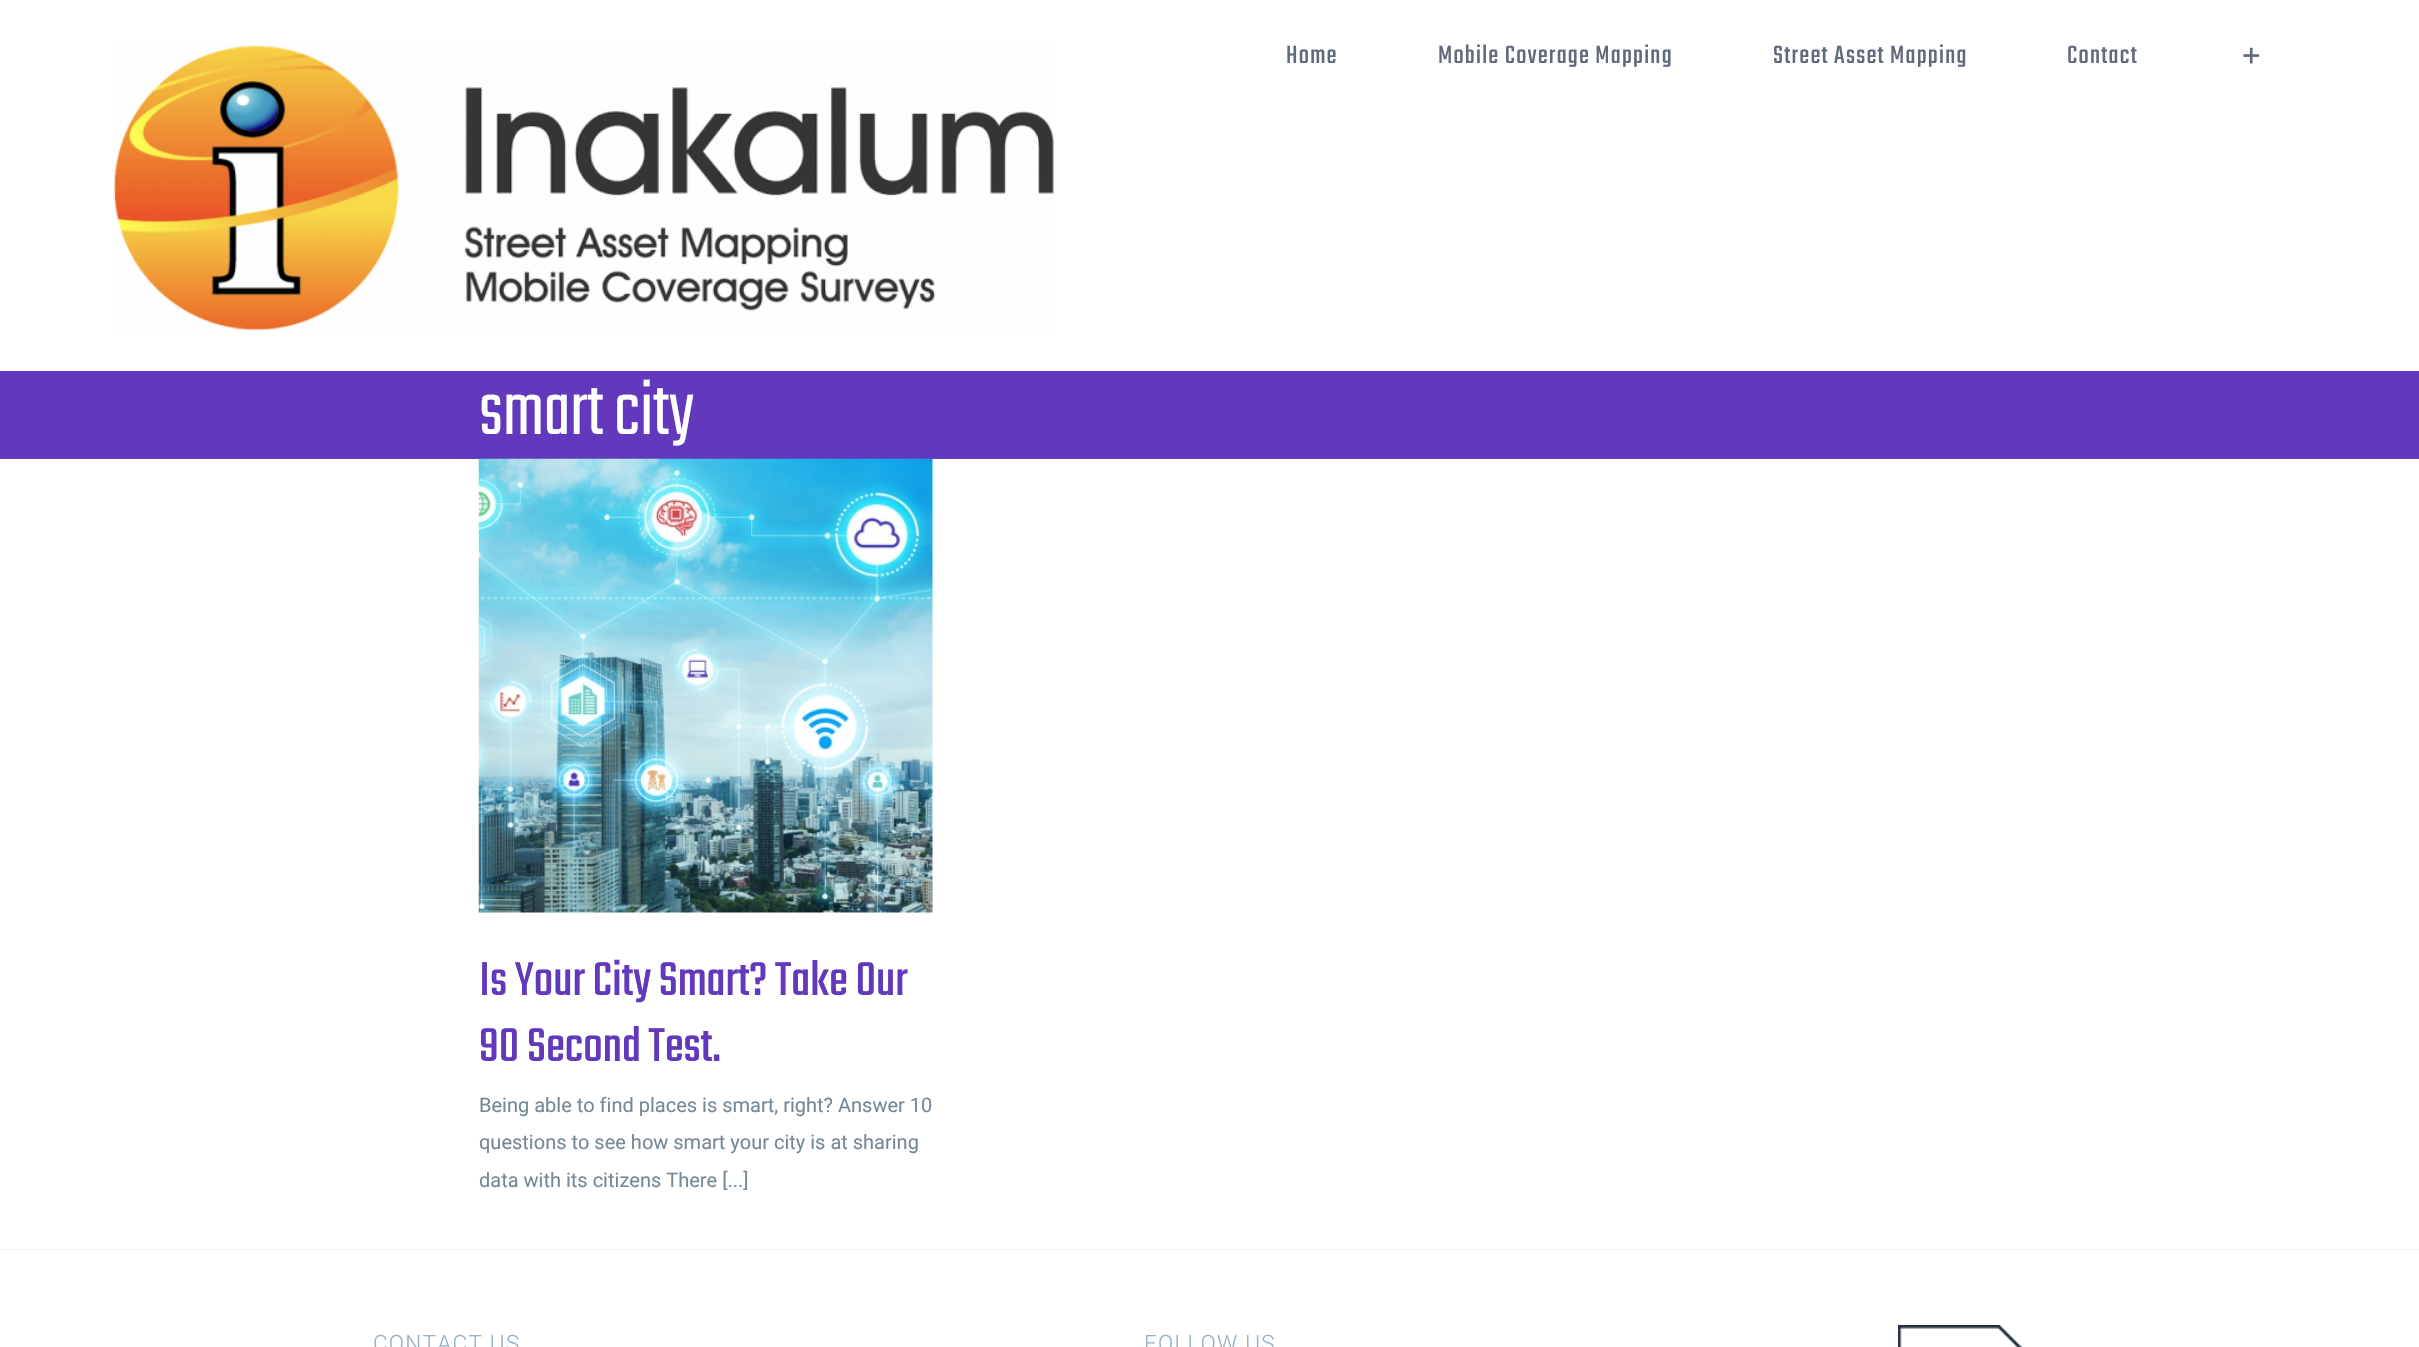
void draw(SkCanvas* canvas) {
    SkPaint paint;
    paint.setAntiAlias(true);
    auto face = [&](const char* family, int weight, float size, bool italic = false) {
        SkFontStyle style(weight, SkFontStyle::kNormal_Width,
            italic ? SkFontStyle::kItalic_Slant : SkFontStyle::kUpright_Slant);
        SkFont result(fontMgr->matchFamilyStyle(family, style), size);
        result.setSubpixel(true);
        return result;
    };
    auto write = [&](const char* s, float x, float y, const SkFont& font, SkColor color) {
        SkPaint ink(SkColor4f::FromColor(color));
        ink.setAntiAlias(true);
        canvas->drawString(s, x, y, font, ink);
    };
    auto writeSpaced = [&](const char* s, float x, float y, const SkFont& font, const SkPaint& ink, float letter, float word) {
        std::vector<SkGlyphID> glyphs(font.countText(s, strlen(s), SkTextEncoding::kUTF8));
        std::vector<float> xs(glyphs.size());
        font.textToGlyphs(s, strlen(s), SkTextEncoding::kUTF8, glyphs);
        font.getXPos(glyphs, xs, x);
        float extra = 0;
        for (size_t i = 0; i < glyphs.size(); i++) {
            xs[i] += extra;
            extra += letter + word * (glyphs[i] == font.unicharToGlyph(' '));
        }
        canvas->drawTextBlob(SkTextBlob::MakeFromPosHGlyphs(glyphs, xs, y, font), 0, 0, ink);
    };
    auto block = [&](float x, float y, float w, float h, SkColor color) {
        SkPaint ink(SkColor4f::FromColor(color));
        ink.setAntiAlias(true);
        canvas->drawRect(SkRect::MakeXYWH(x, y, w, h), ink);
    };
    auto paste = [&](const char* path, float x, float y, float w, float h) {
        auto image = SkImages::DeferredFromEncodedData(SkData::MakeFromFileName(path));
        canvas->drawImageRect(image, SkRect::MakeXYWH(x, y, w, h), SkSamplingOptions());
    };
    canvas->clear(SK_ColorWHITE);
    paste("pic1.png", 113, 45, 942, 286);
    auto kFont1 = face("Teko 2", 300, 27.5f);
    paint.setColor(SkColorSetRGB(97, 106, 125));
    writeSpaced("Home", 1286, 63, kFont1, paint, 1.25f, 0);
    writeSpaced("Mobile Coverage Mapping", 1438, 63, kFont1, paint, 1.25f, 0);
    writeSpaced("Street Asset Mapping", 1773, 63, kFont1, paint, 1.25f, 0);
    writeSpaced("Contact", 2067, 63, kFont1, paint, 1.25f, 0);
    paste("pic2.png", 2243, 47, 17, 17);
    block(0, 371, 2419, 88, SkColorSetRGB(98, 57, 189));
    auto kFont2 = face("Teko", 300, 81);
    write("smart city", 479, 434, kFont2, SK_ColorWHITE);
    paste("pic3.png", 478, 458, 455, 455);
    auto kFont3 = face("Teko 2", 300, 52.5f);
    write("Is Your City Smart? Take Our", 479, 995, kFont3, SkColorSetRGB(98, 57, 189));
    write("90 Second Test.", 479, 1061, kFont3, SkColorSetRGB(98, 57, 189));
    auto kFont4 = face("Roboto", 400, 20);
    write("Being able to find places is smart, right? Answer 10", 479, 1112, kFont4, SkColorSetRGB(118, 136, 148));
    write("questions to see how smart your city is at sharing", 479, 1149, kFont4, SkColorSetRGB(118, 136, 148));
    write("data with its citizens There [...]", 479, 1187, kFont4, SkColorSetRGB(118, 136, 148));
    block(0, 1249, 2419, 1, SkColorSetRGB(239, 241, 242));
    auto kFont5 = face("Roboto", 300, 22.5f);
    paint.setColor(SkColorSetRGB(151, 176, 193));
    writeSpaced("CONTACT US", 373, 1351, kFont5, paint, 1.25f, 0);
    writeSpaced("FOLLOW US", 1144, 1351, kFont5, paint, 1.25f, 0);
    paste("pic4.png", 1898, 1325, 125, 22);
}
